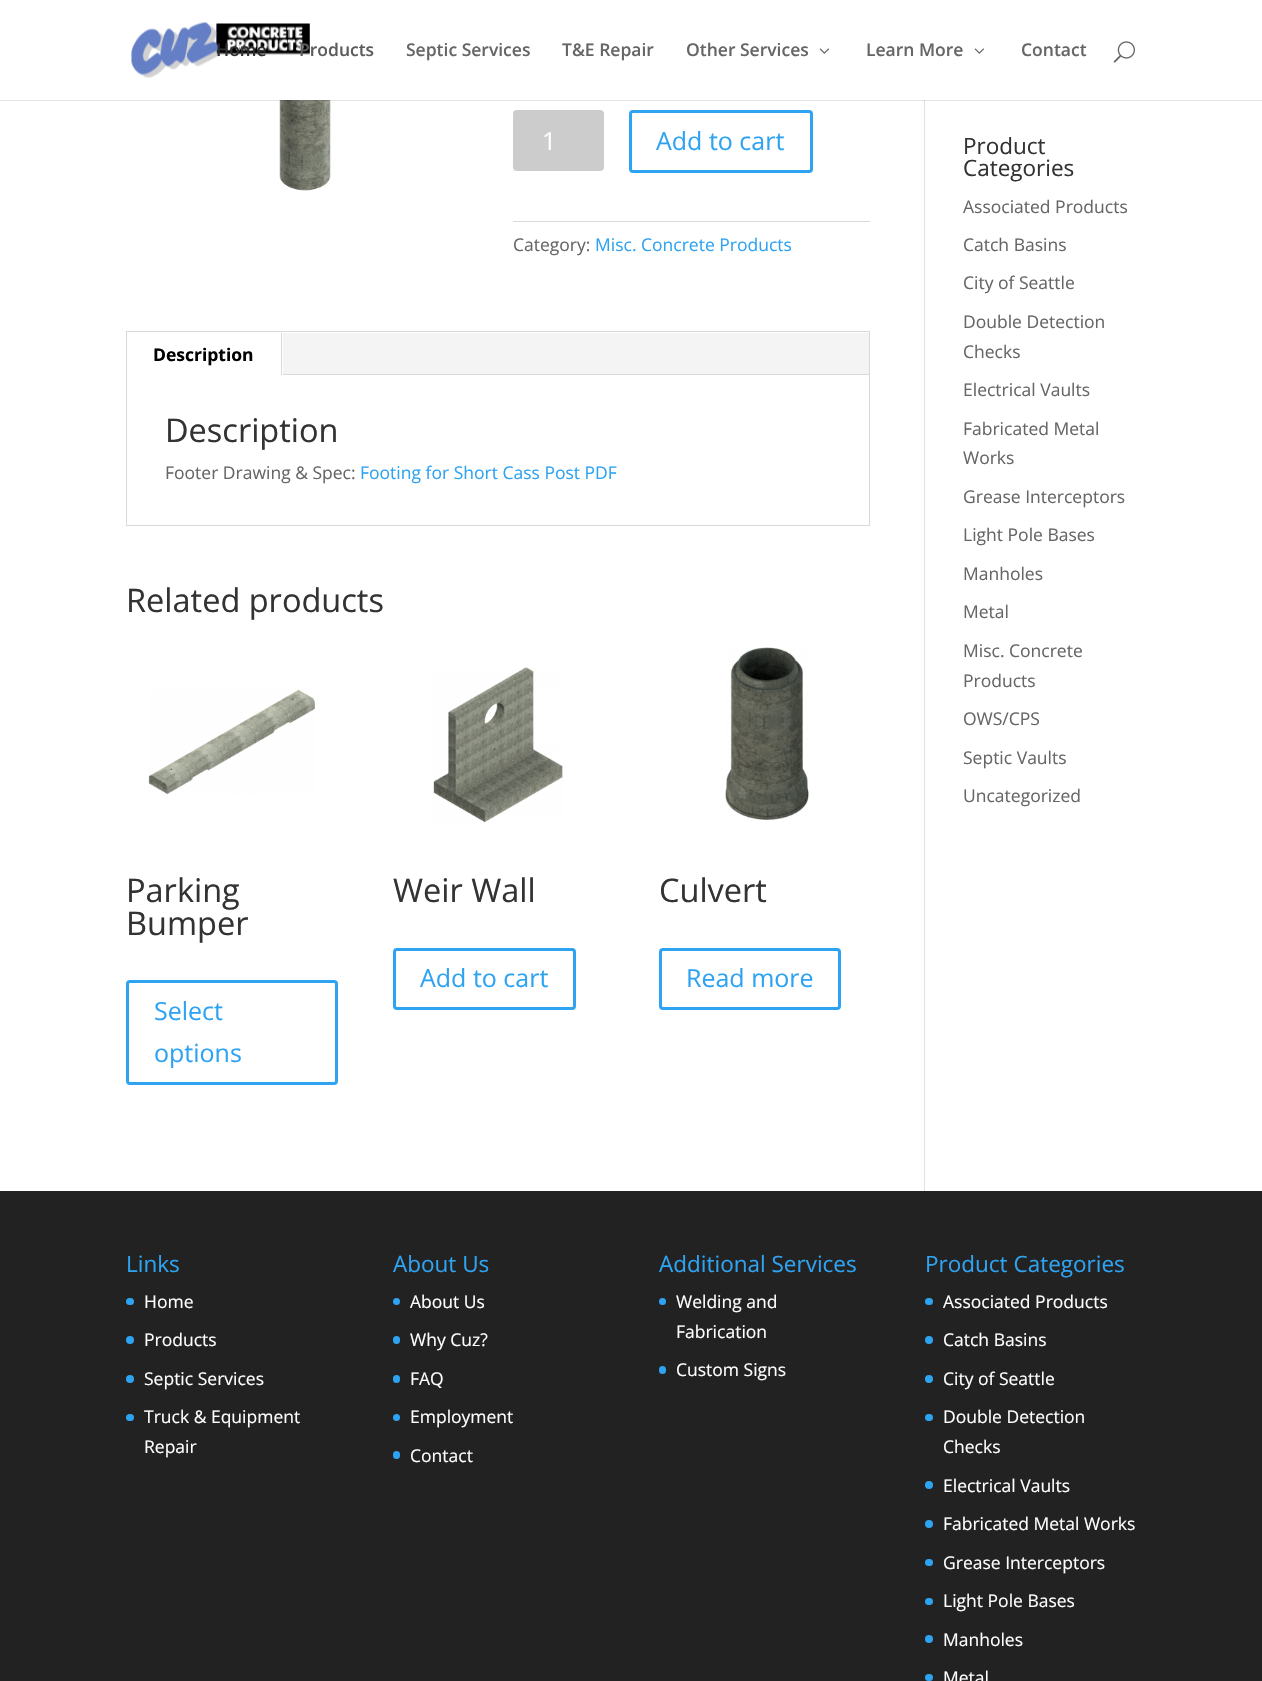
void draw(SkCanvas* canvas) {
    SkPaint paint;
    paint.setAntiAlias(true);
    auto face = [&](const char* family, int weight, float size, bool italic = false) {
        SkFontStyle style(weight, SkFontStyle::kNormal_Width,
            italic ? SkFontStyle::kItalic_Slant : SkFontStyle::kUpright_Slant);
        SkFont result(fontMgr->matchFamilyStyle(family, style), size);
        result.setSubpixel(true);
        return result;
    };
    auto write = [&](const char* s, float x, float y, const SkFont& font, SkColor color) {
        SkPaint ink(SkColor4f::FromColor(color));
        ink.setAntiAlias(true);
        canvas->drawString(s, x, y, font, ink);
    };
    auto block = [&](float x, float y, float w, float h, SkColor color) {
        SkPaint ink(SkColor4f::FromColor(color));
        ink.setAntiAlias(true);
        canvas->drawRect(SkRect::MakeXYWH(x, y, w, h), ink);
    };
    auto card = [&](float x, float y, float w, float h, float radius, SkColor color) {
        SkPaint ink(SkColor4f::FromColor(color));
        ink.setAntiAlias(true);
        canvas->drawRoundRect(SkRect::MakeXYWH(x, y, w, h), radius, radius, ink);
    };
    auto paste = [&](const char* path, float x, float y, float w, float h) {
        auto image = SkImages::DeferredFromEncodedData(SkData::MakeFromFileName(path));
        canvas->drawImageRect(image, SkRect::MakeXYWH(x, y, w, h), SkSamplingOptions());
    };
    canvas->clear(SK_ColorWHITE);
    block(924, 100, 1, 1091, SkColorSetRGB(226, 226, 226));
    paste("pic4.png", 279, 100, 52, 91);
    paint.setColor(SkColorSetARGB(26, 0, 0, 0));
    canvas->drawPath(SkPathBuilder().moveTo(0, 100).lineTo(0, 101).lineTo(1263, 101).lineTo(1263, 1).lineTo(1262, 1).lineTo(1262, 100).close().detach(), paint);
    paste("pic1.png", 131, 22, 179, 56);
    auto kFont1 = face("Open Sans", 600, 17.5f);
    write("Home", 216, 56, kFont1, SkColorSetRGB(45, 45, 46));
    write("Products", 299, 56, kFont1, SkColorSetRGB(92, 92, 92));
    write("Septic Services", 406, 56, kFont1, SkColorSetRGB(102, 102, 102));
    write("T&E Repair", 562, 56, kFont1, SkColorSetRGB(102, 102, 102));
    write("Other Services", 686, 56, kFont1, SkColorSetRGB(102, 102, 102));
    paste("pic2.png", 819, 48, 10, 6);
    write("Learn More", 866, 56, kFont1, SkColorSetRGB(102, 102, 102));
    paste("pic2.png", 974, 48, 10, 6);
    write("Contact", 1021, 56, kFont1, SkColorSetRGB(102, 102, 102));
    paste("pic3.png", 1113, 41, 22, 22);
    card(513, 110, 91, 61, 4, SkColorSetRGB(204, 204, 204));
    auto kFont2 = face("Open Sans", 400, 25);
    write("1", 542, 150, kFont2, SK_ColorWHITE);
    paint.setStyle(SkPaint::kStroke_Style);
    paint.setStrokeWidth(3);
    paint.setColor(SkColorSetRGB(46, 163, 242));
    canvas->drawRoundRect(SkRect::MakeXYWH(630.5f, 111.5f, 181, 60), 2.5f, 2.5f, paint);
    write("Add to cart", 656, 150, kFont2, SkColorSetRGB(46, 163, 242));
    block(513, 221, 357, 1, SkColorSetRGB(218, 218, 218));
    auto kFont3 = face("Open Sans", 400, 17.5f);
    write("Category:", 513, 251, kFont3, SkColorSetRGB(102, 102, 102));
    write("Misc. Concrete Products", 595, 251, kFont3, SkColorSetRGB(46, 163, 242));
    paint.setStrokeWidth(1);
    paint.setColor(SkColorSetRGB(217, 217, 217));
    canvas->drawRect(SkRect::MakeXYWH(126.5f, 331.5f, 743, 194), paint);
    block(283, 333, 586, 41, SkColorSetRGB(244, 244, 244));
    block(281, 333, 1, 42, SkColorSetRGB(217, 217, 217));
    auto kFont4 = face("Open Sans", 700, 17.5f);
    write("Description", 153, 361, kFont4, SK_ColorBLACK);
    block(283, 374, 586, 1, SkColorSetRGB(217, 217, 217));
    auto kFont5 = face("Open Sans", 400, 32.5f);
    write("Description", 165, 442, kFont5, SkColorSetRGB(51, 51, 51));
    write("Footer Drawing & Spec:", 165, 479, kFont3, SkColorSetRGB(102, 102, 102));
    write("Footing for Short Cass Post PDF", 360, 479, kFont3, SkColorSetRGB(46, 163, 242));
    write("Related products", 126, 612, kFont5, SkColorSetRGB(51, 51, 51));
    paste("pic5.png", 148, 689, 167, 106);
    write("Parking", 126, 902, kFont5, SkColorSetRGB(51, 51, 51));
    write("Bumper", 126, 935, kFont5, SkColorSetRGB(51, 51, 51));
    paint.setStrokeWidth(3);
    paint.setColor(SkColorSetRGB(46, 163, 242));
    canvas->drawRoundRect(SkRect::MakeXYWH(127.5f, 981.5f, 209, 102), 2.5f, 2.5f, paint);
    write("Select", 154, 1020, kFont2, SkColorSetRGB(46, 163, 242));
    write("options", 154, 1062, kFont2, SkColorSetRGB(46, 163, 242));
    paste("pic6.png", 433, 667, 130, 156);
    write("Weir Wall", 393, 902, kFont5, SkColorSetRGB(51, 51, 51));
    canvas->drawRoundRect(SkRect::MakeXYWH(394.5f, 949.5f, 180, 59), 2.5f, 2.5f, paint);
    write("Add to cart", 420, 987, kFont2, SkColorSetRGB(46, 163, 242));
    paste("pic7.png", 725, 647, 84, 173);
    write("Culvert", 659, 902, kFont5, SkColorSetRGB(51, 51, 51));
    canvas->drawRoundRect(SkRect::MakeXYWH(660.5f, 949.5f, 179, 59), 2.5f, 2.5f, paint);
    write("Read more", 686, 987, kFont2, SkColorSetRGB(46, 163, 242));
    auto kFont6 = face("Open Sans", 400, 22.5f);
    write("Product", 963, 154, kFont6, SkColorSetRGB(51, 51, 51));
    write("Categories", 963, 176, kFont6, SkColorSetRGB(51, 51, 51));
    write("Associated Products", 963, 213, kFont3, SkColorSetRGB(102, 102, 102));
    write("Catch Basins", 963, 251, kFont3, SkColorSetRGB(102, 102, 102));
    write("City of Seattle", 963, 289, kFont3, SkColorSetRGB(102, 102, 102));
    write("Double Detection", 963, 328, kFont3, SkColorSetRGB(102, 102, 102));
    write("Checks", 963, 358, kFont3, SkColorSetRGB(102, 102, 102));
    write("Electrical Vaults", 963, 396, kFont3, SkColorSetRGB(102, 102, 102));
    write("Fabricated Metal", 963, 435, kFont3, SkColorSetRGB(102, 102, 102));
    write("Works", 963, 464, kFont3, SkColorSetRGB(102, 102, 102));
    write("Grease Interceptors", 963, 503, kFont3, SkColorSetRGB(102, 102, 102));
    write("Light Pole Bases", 963, 541, kFont3, SkColorSetRGB(102, 102, 102));
    write("Manholes", 963, 580, kFont3, SkColorSetRGB(102, 102, 102));
    write("Metal", 963, 618, kFont3, SkColorSetRGB(102, 102, 102));
    write("Misc. Concrete", 963, 657, kFont3, SkColorSetRGB(102, 102, 102));
    write("Products", 963, 687, kFont3, SkColorSetRGB(102, 102, 102));
    write("OWS/CPS", 963, 725, kFont3, SkColorSetRGB(102, 102, 102));
    write("Septic Vaults", 963, 764, kFont3, SkColorSetRGB(102, 102, 102));
    write("Uncategorized", 963, 802, kFont3, SkColorSetRGB(102, 102, 102));
    block(0, 1191, 1262, 490, SkColorSetRGB(34, 34, 34));
    write("Links", 126, 1272, kFont6, SkColorSetRGB(46, 163, 242));
    card(126, 1298, 8, 7, 3.5f, SkColorSetRGB(46, 163, 242));
    write("Home", 144, 1308, kFont3, SK_ColorWHITE);
    paint.setStyle(SkPaint::kFill_Style);
    canvas->drawCircle(130, 1340, 4, paint);
    write("Products", 144, 1346, kFont3, SK_ColorWHITE);
    canvas->drawCircle(130, 1379, 4, paint);
    write("Septic Services", 144, 1385, kFont3, SK_ColorWHITE);
    card(126, 1414, 8, 7, 3.5f, SkColorSetRGB(46, 163, 242));
    write("Truck & Equipment", 144, 1423, kFont3, SK_ColorWHITE);
    write("Repair", 144, 1453, kFont3, SK_ColorWHITE);
    write("About Us", 393, 1272, kFont6, SkColorSetRGB(46, 163, 242));
    canvas->drawCircle(396.5f, 1301.5f, 3.5f, paint);
    write("About Us", 410, 1308, kFont3, SK_ColorWHITE);
    card(393, 1336, 7, 8, 3.5f, SkColorSetRGB(46, 163, 242));
    write("Why Cuz?", 410, 1346, kFont3, SK_ColorWHITE);
    card(393, 1375, 7, 8, 3.5f, SkColorSetRGB(46, 163, 242));
    write("FAQ", 410, 1385, kFont3, SK_ColorWHITE);
    canvas->drawCircle(396.5f, 1417.5f, 3.5f, paint);
    write("Employment", 410, 1423, kFont3, SK_ColorWHITE);
    card(393, 1451, 7, 8, 3.5f, SkColorSetRGB(46, 163, 242));
    write("Contact", 410, 1462, kFont3, SK_ColorWHITE);
    write("Additional Services", 659, 1272, kFont6, SkColorSetRGB(46, 163, 242));
    canvas->drawCircle(662.5f, 1301.5f, 3.5f, paint);
    write("Welding and", 676, 1308, kFont3, SK_ColorWHITE);
    write("Fabrication", 676, 1338, kFont3, SK_ColorWHITE);
    card(659, 1366, 7, 8, 3.5f, SkColorSetRGB(46, 163, 242));
    write("Custom Signs", 676, 1376, kFont3, SK_ColorWHITE);
    write("Product Categories", 925, 1272, kFont6, SkColorSetRGB(46, 163, 242));
    card(925, 1298, 8, 7, 3.5f, SkColorSetRGB(46, 163, 242));
    write("Associated Products", 943, 1308, kFont3, SK_ColorWHITE);
    canvas->drawCircle(929, 1340, 4, paint);
    write("Catch Basins", 943, 1346, kFont3, SK_ColorWHITE);
    canvas->drawCircle(929, 1379, 4, paint);
    write("City of Seattle", 943, 1385, kFont3, SK_ColorWHITE);
    card(925, 1414, 8, 7, 3.5f, SkColorSetRGB(46, 163, 242));
    write("Double Detection", 943, 1423, kFont3, SK_ColorWHITE);
    write("Checks", 943, 1453, kFont3, SK_ColorWHITE);
    canvas->drawCircle(929, 1485, 4, paint);
    write("Electrical Vaults", 943, 1492, kFont3, SK_ColorWHITE);
    canvas->drawCircle(929, 1524, 4, paint);
    write("Fabricated Metal Works", 943, 1530, kFont3, SK_ColorWHITE);
    card(925, 1559, 8, 7, 3.5f, SkColorSetRGB(46, 163, 242));
    write("Grease Interceptors", 943, 1569, kFont3, SK_ColorWHITE);
    card(925, 1598, 8, 7, 3.5f, SkColorSetRGB(46, 163, 242));
    write("Light Pole Bases", 943, 1607, kFont3, SK_ColorWHITE);
    canvas->drawCircle(929, 1639, 4, paint);
    write("Manholes", 943, 1646, kFont3, SK_ColorWHITE);
    card(925, 1674, 8, 7, 3.5f, SkColorSetRGB(46, 163, 242));
    write("Metal", 943, 1684, kFont3, SK_ColorWHITE);
}
